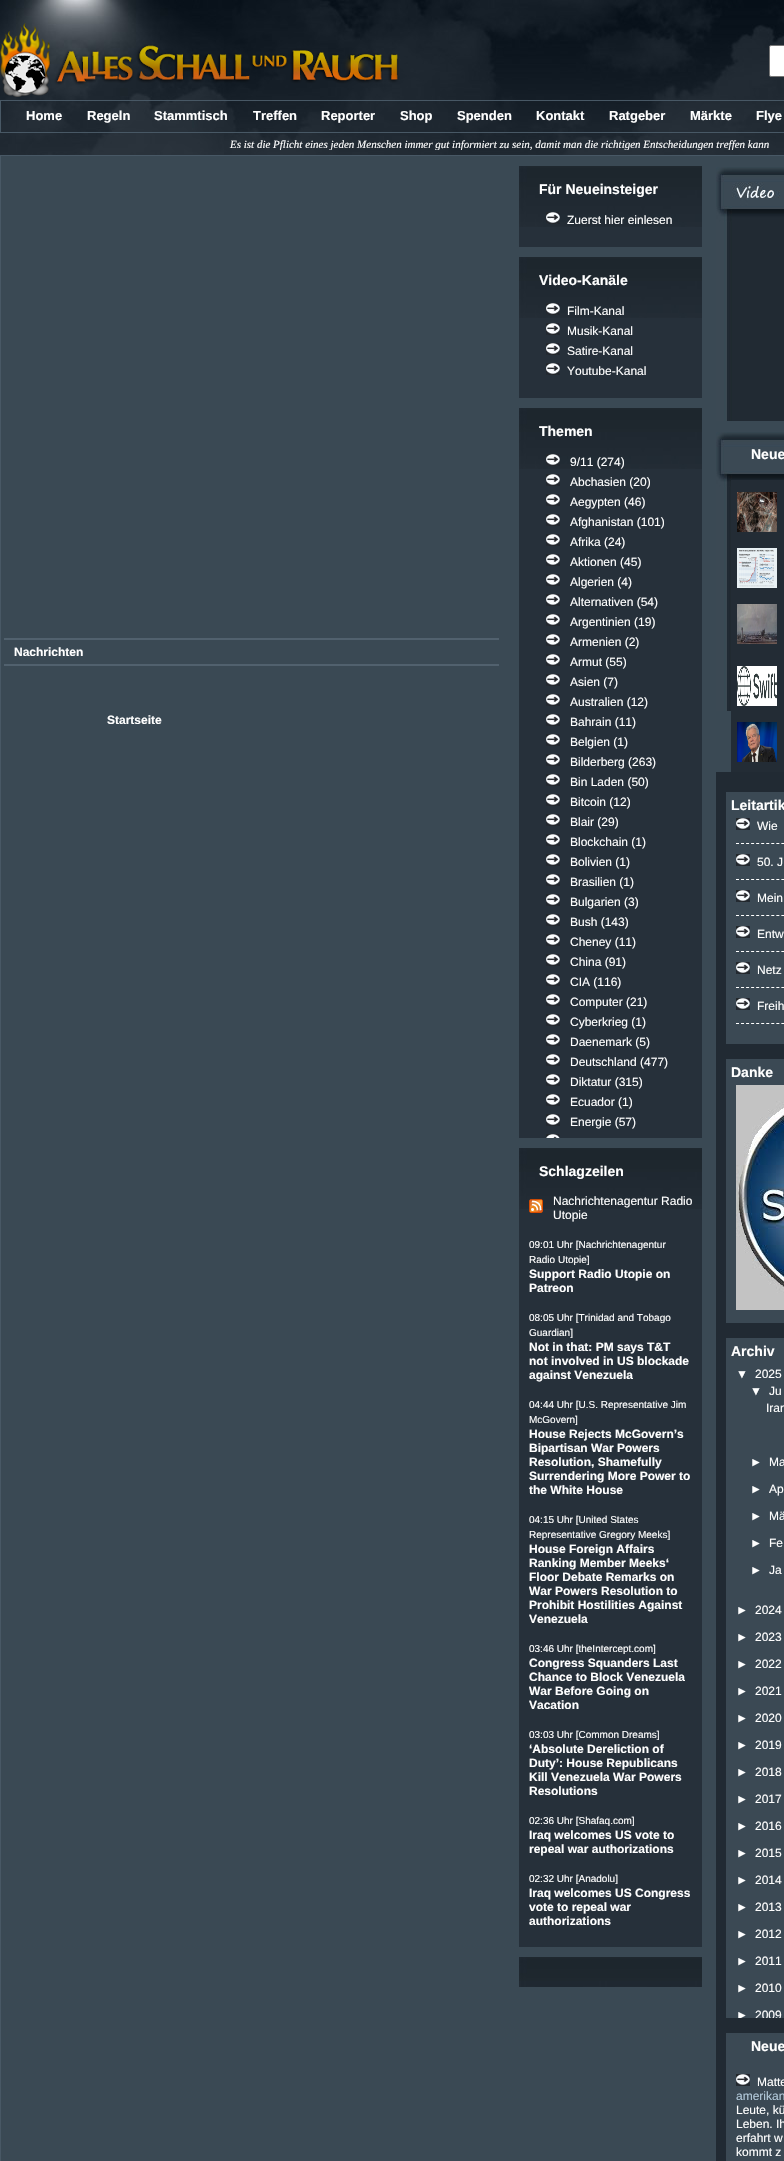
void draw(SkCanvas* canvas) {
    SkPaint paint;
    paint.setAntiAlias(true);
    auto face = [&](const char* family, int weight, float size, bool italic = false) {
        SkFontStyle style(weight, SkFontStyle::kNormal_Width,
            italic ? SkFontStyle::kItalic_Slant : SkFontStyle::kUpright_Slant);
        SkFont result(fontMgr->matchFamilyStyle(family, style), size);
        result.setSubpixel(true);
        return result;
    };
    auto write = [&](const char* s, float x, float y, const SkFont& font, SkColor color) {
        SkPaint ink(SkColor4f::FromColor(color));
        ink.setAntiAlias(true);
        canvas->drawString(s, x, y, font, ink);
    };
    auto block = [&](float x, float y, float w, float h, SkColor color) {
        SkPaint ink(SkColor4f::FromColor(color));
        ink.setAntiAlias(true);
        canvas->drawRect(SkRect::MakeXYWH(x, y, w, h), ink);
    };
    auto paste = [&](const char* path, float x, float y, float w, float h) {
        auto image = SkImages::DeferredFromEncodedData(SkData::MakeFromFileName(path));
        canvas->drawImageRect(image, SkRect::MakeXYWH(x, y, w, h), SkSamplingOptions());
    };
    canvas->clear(SK_ColorWHITE);
    paste("pic1.png", 0, 0, 784, 155);
    paste("pic2.png", 0, 23, 399, 74);
    paint.setColor(SK_ColorWHITE);
    canvas->drawRoundRect(SkRect::MakeXYWH(769.5f, 45.5f, 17, 31), 1.5f, 1.5f, paint);
    paint.setStyle(SkPaint::kStroke_Style);
    paint.setStrokeWidth(1);
    paint.setColor(SkColorSetRGB(118, 118, 118));
    canvas->drawRoundRect(SkRect::MakeXYWH(769.5f, 45.5f, 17, 31), 1.5f, 1.5f, paint);
    paint.setColor(SkColorSetRGB(72, 88, 101));
    canvas->drawRect(SkRect::MakeXYWH(0.5f, 100.5f, 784, 32), paint);
    auto kFont1 = face("Liberation Sans", 700, 13);
    write("Home", 26, 120, kFont1, SK_ColorWHITE);
    write("Regeln", 87, 120, kFont1, SK_ColorWHITE);
    write("Stammtisch", 154, 120, kFont1, SK_ColorWHITE);
    write("Treffen", 253, 120, kFont1, SK_ColorWHITE);
    write("Reporter", 321, 120, kFont1, SK_ColorWHITE);
    write("Shop", 400, 120, kFont1, SK_ColorWHITE);
    write("Spenden", 457, 120, kFont1, SK_ColorWHITE);
    write("Kontakt", 536, 120, kFont1, SK_ColorWHITE);
    write("Ratgeber", 609, 120, kFont1, SK_ColorWHITE);
    write("Märkte", 690, 120, kFont1, SK_ColorWHITE);
    write("Flye", 756, 120, kFont1, SK_ColorWHITE);
    canvas->save();
    canvas->clipRect(SkRect::MakeXYWH(0, 138, 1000, 12));
    auto kFont2 = face("Liberation Serif", 400, 11, true);
    write("Es ist die Pflicht eines jeden Menschen immer gut informiert zu sein, damit man die richtigen Entscheidungen treffen kann", 230, 148, kFont2, SK_ColorWHITE);
    canvas->restore();
    paint.setStyle(SkPaint::kFill_Style);
    paint.setColor(SkColorSetRGB(58, 73, 84));
    canvas->drawRect(SkRect::MakeXYWH(0.5f, 155.5f, 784, 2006), paint);
    paint.setStyle(SkPaint::kStroke_Style);
    paint.setColor(SkColorSetRGB(72, 88, 101));
    canvas->drawRect(SkRect::MakeXYWH(0.5f, 155.5f, 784, 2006), paint);
    block(4, 638, 495, 2, SkColorSetRGB(81, 97, 110));
    block(4, 664, 495, 2, SkColorSetRGB(81, 97, 110));
    auto kFont3 = face("Liberation Sans", 700, 12);
    write("Nachrichten", 14, 656, kFont3, SK_ColorWHITE);
    write("Startseite", 107, 724, kFont3, SK_ColorWHITE);
    block(519, 227, 183, 20, SkColorSetRGB(38, 48, 58));
    paste("pic3.png", 519, 166, 183, 61);
    auto kFont4 = face("Liberation Sans", 700, 14);
    write("Für Neueinsteiger", 539, 194, kFont4, SK_ColorWHITE);
    paste("pic4.png", 546, 212, 14, 12);
    auto kFont5 = face("Liberation Sans", 400, 12);
    write("Zuerst hier einlesen", 567, 224, kFont5, SK_ColorWHITE);
    block(519, 318, 183, 80, SkColorSetRGB(38, 48, 58));
    paste("pic3.png", 519, 257, 183, 61);
    write("Video-Kanäle", 539, 285, kFont4, SK_ColorWHITE);
    paste("pic4.png", 546, 303, 14, 12);
    write("Film-Kanal", 567, 315, kFont5, SK_ColorWHITE);
    paste("pic4.png", 546, 323, 14, 12);
    write("Musik-Kanal", 567, 335, kFont5, SK_ColorWHITE);
    paste("pic4.png", 546, 343, 14, 12);
    write("Satire-Kanal", 567, 355, kFont5, SK_ColorWHITE);
    paste("pic4.png", 546, 363, 14, 12);
    write("Youtube-Kanal", 567, 375, kFont5, SK_ColorWHITE);
    block(519, 469, 183, 669, SkColorSetRGB(38, 48, 58));
    paste("pic3.png", 519, 408, 183, 61);
    write("Themen", 539, 436, kFont4, SK_ColorWHITE);
    paste("pic4.png", 546, 454, 14, 12);
    write("9/11 (274)", 570, 466, kFont5, SK_ColorWHITE);
    paste("pic4.png", 546, 474, 14, 12);
    write("Abchasien (20)", 570, 486, kFont5, SK_ColorWHITE);
    paste("pic4.png", 546, 494, 14, 12);
    write("Aegypten (46)", 570, 506, kFont5, SK_ColorWHITE);
    paste("pic4.png", 546, 514, 14, 12);
    write("Afghanistan (101)", 570, 526, kFont5, SK_ColorWHITE);
    paste("pic4.png", 546, 534, 14, 12);
    write("Afrika (24)", 570, 546, kFont5, SK_ColorWHITE);
    paste("pic4.png", 546, 554, 14, 12);
    write("Aktionen (45)", 570, 566, kFont5, SK_ColorWHITE);
    paste("pic4.png", 546, 574, 14, 12);
    write("Algerien (4)", 570, 586, kFont5, SK_ColorWHITE);
    paste("pic4.png", 546, 594, 14, 12);
    write("Alternativen (54)", 570, 606, kFont5, SK_ColorWHITE);
    paste("pic4.png", 546, 614, 14, 12);
    write("Argentinien (19)", 570, 626, kFont5, SK_ColorWHITE);
    paste("pic4.png", 546, 634, 14, 12);
    write("Armenien (2)", 570, 646, kFont5, SK_ColorWHITE);
    paste("pic4.png", 546, 654, 14, 12);
    write("Armut (55)", 570, 666, kFont5, SK_ColorWHITE);
    paste("pic4.png", 546, 674, 14, 12);
    write("Asien (7)", 570, 686, kFont5, SK_ColorWHITE);
    paste("pic4.png", 546, 694, 14, 12);
    write("Australien (12)", 570, 706, kFont5, SK_ColorWHITE);
    paste("pic4.png", 546, 714, 14, 12);
    write("Bahrain (11)", 570, 726, kFont5, SK_ColorWHITE);
    paste("pic4.png", 546, 734, 14, 12);
    write("Belgien (1)", 570, 746, kFont5, SK_ColorWHITE);
    paste("pic4.png", 546, 754, 14, 12);
    write("Bilderberg (263)", 570, 766, kFont5, SK_ColorWHITE);
    paste("pic4.png", 546, 774, 14, 12);
    write("Bin Laden (50)", 570, 786, kFont5, SK_ColorWHITE);
    paste("pic4.png", 546, 794, 14, 12);
    write("Bitcoin (12)", 570, 806, kFont5, SK_ColorWHITE);
    paste("pic4.png", 546, 814, 14, 12);
    write("Blair (29)", 570, 826, kFont5, SK_ColorWHITE);
    paste("pic4.png", 546, 834, 14, 12);
    write("Blockchain (1)", 570, 846, kFont5, SK_ColorWHITE);
    paste("pic4.png", 546, 854, 14, 12);
    write("Bolivien (1)", 570, 866, kFont5, SK_ColorWHITE);
    paste("pic4.png", 546, 874, 14, 12);
    write("Brasilien (1)", 570, 886, kFont5, SK_ColorWHITE);
    paste("pic4.png", 546, 894, 14, 12);
    write("Bulgarien (3)", 570, 906, kFont5, SK_ColorWHITE);
    paste("pic4.png", 546, 914, 14, 12);
    write("Bush (143)", 570, 926, kFont5, SK_ColorWHITE);
    paste("pic4.png", 546, 934, 14, 12);
    write("Cheney (11)", 570, 946, kFont5, SK_ColorWHITE);
    paste("pic4.png", 546, 954, 14, 12);
    write("China (91)", 570, 966, kFont5, SK_ColorWHITE);
    paste("pic4.png", 546, 974, 14, 12);
    write("CIA (116)", 570, 986, kFont5, SK_ColorWHITE);
    paste("pic4.png", 546, 994, 14, 12);
    write("Computer (21)", 570, 1006, kFont5, SK_ColorWHITE);
    paste("pic4.png", 546, 1014, 14, 12);
    write("Cyberkrieg (1)", 570, 1026, kFont5, SK_ColorWHITE);
    paste("pic4.png", 546, 1034, 14, 12);
    write("Daenemark (5)", 570, 1046, kFont5, SK_ColorWHITE);
    paste("pic4.png", 546, 1054, 14, 12);
    write("Deutschland (477)", 570, 1066, kFont5, SK_ColorWHITE);
    paste("pic4.png", 546, 1074, 14, 12);
    write("Diktatur (315)", 570, 1086, kFont5, SK_ColorWHITE);
    paste("pic4.png", 546, 1094, 14, 12);
    write("Ecuador (1)", 570, 1106, kFont5, SK_ColorWHITE);
    paste("pic4.png", 546, 1114, 14, 12);
    write("Energie (57)", 570, 1126, kFont5, SK_ColorWHITE);
    paste("pic5.png", 546, 1134, 14, 4);
    block(519, 1209, 183, 738, SkColorSetRGB(38, 48, 58));
    paste("pic3.png", 519, 1148, 183, 61);
    write("Schlagzeilen", 539, 1176, kFont4, SK_ColorWHITE);
    paste("pic6.png", 529, 1199, 14, 14);
    write("Nachrichtenagentur Radio", 553, 1205, kFont5, SK_ColorWHITE);
    write("Utopie", 553, 1219, kFont5, SK_ColorWHITE);
    auto kFont6 = face("Liberation Sans", 400, 10);
    write("09:01 Uhr [Nachrichtenagentur", 529, 1248, kFont6, SK_ColorWHITE);
    write("Radio Utopie]", 529, 1263, kFont6, SK_ColorWHITE);
    write("Support Radio Utopie on", 529, 1278, kFont3, SK_ColorWHITE);
    write("Patreon", 529, 1292, kFont3, SK_ColorWHITE);
    write("08:05 Uhr [Trinidad and Tobago", 529, 1321, kFont6, SK_ColorWHITE);
    write("Guardian]", 529, 1336, kFont6, SK_ColorWHITE);
    write("Not in that: PM says T&T", 529, 1351, kFont3, SK_ColorWHITE);
    write("not involved in US blockade", 529, 1365, kFont3, SK_ColorWHITE);
    write("against Venezuela", 529, 1379, kFont3, SK_ColorWHITE);
    write("04:44 Uhr [U.S. Representative Jim", 529, 1408, kFont6, SK_ColorWHITE);
    write("McGovern]", 529, 1423, kFont6, SK_ColorWHITE);
    write("House Rejects McGovern’s", 529, 1438, kFont3, SK_ColorWHITE);
    write("Bipartisan War Powers", 529, 1452, kFont3, SK_ColorWHITE);
    write("Resolution, Shamefully", 529, 1466, kFont3, SK_ColorWHITE);
    write("Surrendering More Power to", 529, 1480, kFont3, SK_ColorWHITE);
    write("the White House", 529, 1494, kFont3, SK_ColorWHITE);
    write("04:15 Uhr [United States", 529, 1523, kFont6, SK_ColorWHITE);
    write("Representative Gregory Meeks]", 529, 1538, kFont6, SK_ColorWHITE);
    write("House Foreign Affairs", 529, 1553, kFont3, SK_ColorWHITE);
    write("Ranking Member Meeks‘", 529, 1567, kFont3, SK_ColorWHITE);
    write("Floor Debate Remarks on", 529, 1581, kFont3, SK_ColorWHITE);
    write("War Powers Resolution to", 529, 1595, kFont3, SK_ColorWHITE);
    write("Prohibit Hostilities Against", 529, 1609, kFont3, SK_ColorWHITE);
    write("Venezuela", 529, 1623, kFont3, SK_ColorWHITE);
    write("03:46 Uhr [theIntercept.com]", 529, 1652, kFont6, SK_ColorWHITE);
    write("Congress Squanders Last", 529, 1667, kFont3, SK_ColorWHITE);
    write("Chance to Block Venezuela", 529, 1681, kFont3, SK_ColorWHITE);
    write("War Before Going on", 529, 1695, kFont3, SK_ColorWHITE);
    write("Vacation", 529, 1709, kFont3, SK_ColorWHITE);
    write("03:03 Uhr [Common Dreams]", 529, 1738, kFont6, SK_ColorWHITE);
    write("‘Absolute Dereliction of", 529, 1753, kFont3, SK_ColorWHITE);
    write("Duty’: House Republicans", 529, 1767, kFont3, SK_ColorWHITE);
    write("Kill Venezuela War Powers", 529, 1781, kFont3, SK_ColorWHITE);
    write("Resolutions", 529, 1795, kFont3, SK_ColorWHITE);
    write("02:36 Uhr [Shafaq.com]", 529, 1824, kFont6, SK_ColorWHITE);
    write("Iraq welcomes US vote to", 529, 1839, kFont3, SK_ColorWHITE);
    write("repeal war authorizations", 529, 1853, kFont3, SK_ColorWHITE);
    write("02:32 Uhr [Anadolu]", 529, 1882, kFont6, SK_ColorWHITE);
    write("Iraq welcomes US Congress", 529, 1897, kFont3, SK_ColorWHITE);
    write("vote to repeal war", 529, 1911, kFont3, SK_ColorWHITE);
    write("authorizations", 529, 1925, kFont3, SK_ColorWHITE);
    paste("pic7.png", 519, 1957, 183, 30);
    paste("pic8.png", 716, 167, 68, 254);
    paste("pic9.png", 716, 432, 68, 279);
    write("Neue", 751, 459, kFont4, SK_ColorWHITE);
    block(731, 480, 53, 292, SkColorSetRGB(35, 44, 53));
    paste("pic10.png", 737, 492, 40, 40);
    paste("pic11.png", 737, 548, 40, 40);
    paste("pic12.png", 737, 604, 40, 40);
    paste("pic13.png", 737, 666, 40, 40);
    paste("pic14.png", 737, 722, 40, 40);
    block(716, 772, 68, 1389, SkColorSetRGB(33, 42, 51));
    block(726, 792, 58, 252, SkColorSetRGB(59, 73, 84));
    write("Leitartik", 731, 810, kFont4, SK_ColorWHITE);
    paint.setColor(SK_ColorWHITE);
    paint.setPathEffect(SkDashPathEffect::Make({{3, 2.04f}}, 0));
    canvas->drawPath(SkPathBuilder().moveTo(736, 843.5f).lineTo(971, 843.5f).detach(), paint);
    paint.setPathEffect(nullptr);
    paste("pic4.png", 736, 818, 14, 12);
    write("Wie", 757, 830, kFont5, SK_ColorWHITE);
    paint.setPathEffect(SkDashPathEffect::Make({{3, 2.04f}}, 0));
    canvas->drawPath(SkPathBuilder().moveTo(736, 879.5f).lineTo(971, 879.5f).detach(), paint);
    paint.setPathEffect(nullptr);
    paste("pic4.png", 736, 854, 14, 12);
    write("50. J", 757, 866, kFont5, SK_ColorWHITE);
    paint.setPathEffect(SkDashPathEffect::Make({{3, 2.04f}}, 0));
    canvas->drawPath(SkPathBuilder().moveTo(736, 915.5f).lineTo(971, 915.5f).detach(), paint);
    paint.setPathEffect(nullptr);
    paste("pic4.png", 736, 890, 14, 12);
    write("Mein", 757, 902, kFont5, SK_ColorWHITE);
    paint.setPathEffect(SkDashPathEffect::Make({{3, 2.04f}}, 0));
    canvas->drawPath(SkPathBuilder().moveTo(736, 951.5f).lineTo(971, 951.5f).detach(), paint);
    paint.setPathEffect(nullptr);
    paste("pic4.png", 736, 926, 14, 12);
    write("Entw", 757, 938, kFont5, SK_ColorWHITE);
    paint.setPathEffect(SkDashPathEffect::Make({{3, 2.04f}}, 0));
    canvas->drawPath(SkPathBuilder().moveTo(736, 987.5f).lineTo(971, 987.5f).detach(), paint);
    paint.setPathEffect(nullptr);
    paste("pic4.png", 736, 962, 14, 12);
    write("Netz", 757, 974, kFont5, SK_ColorWHITE);
    paint.setPathEffect(SkDashPathEffect::Make({{3, 2.04f}}, 0));
    canvas->drawPath(SkPathBuilder().moveTo(736, 1023.5f).lineTo(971, 1023.5f).detach(), paint);
    paint.setPathEffect(nullptr);
    paste("pic4.png", 736, 998, 14, 12);
    write("Freih", 757, 1010, kFont5, SK_ColorWHITE);
    block(726, 1059, 58, 264, SkColorSetRGB(59, 73, 84));
    write("Danke", 731, 1077, kFont4, SK_ColorWHITE);
    paste("pic15.png", 736, 1085, 48, 225);
    block(726, 1338, 58, 680, SkColorSetRGB(59, 73, 84));
    write("Archiv", 731, 1356, kFont4, SK_ColorWHITE);
    write("▼", 736, 1378, kFont5, SK_ColorWHITE);
    write("2025", 755, 1378, kFont5, SK_ColorWHITE);
    write("▼", 750, 1395, kFont5, SK_ColorWHITE);
    write("Ju", 769, 1395, kFont5, SK_ColorWHITE);
    write("Iran", 766, 1412, kFont5, SK_ColorWHITE);
    write("►", 750, 1466, kFont5, SK_ColorWHITE);
    write("Ma", 769, 1466, kFont5, SK_ColorWHITE);
    write("►", 750, 1493, kFont5, SK_ColorWHITE);
    write("Ap", 769, 1493, kFont5, SK_ColorWHITE);
    write("►", 750, 1520, kFont5, SK_ColorWHITE);
    write("Mä", 769, 1520, kFont5, SK_ColorWHITE);
    write("►", 750, 1547, kFont5, SK_ColorWHITE);
    write("Fe", 769, 1547, kFont5, SK_ColorWHITE);
    write("►", 750, 1574, kFont5, SK_ColorWHITE);
    write("Ja", 769, 1574, kFont5, SK_ColorWHITE);
    write("►", 736, 1614, kFont5, SK_ColorWHITE);
    write("2024", 755, 1614, kFont5, SK_ColorWHITE);
    write("►", 736, 1641, kFont5, SK_ColorWHITE);
    write("2023", 755, 1641, kFont5, SK_ColorWHITE);
    write("►", 736, 1668, kFont5, SK_ColorWHITE);
    write("2022", 755, 1668, kFont5, SK_ColorWHITE);
    write("►", 736, 1695, kFont5, SK_ColorWHITE);
    write("2021", 755, 1695, kFont5, SK_ColorWHITE);
    write("►", 736, 1722, kFont5, SK_ColorWHITE);
    write("2020", 755, 1722, kFont5, SK_ColorWHITE);
    write("►", 736, 1749, kFont5, SK_ColorWHITE);
    write("2019", 755, 1749, kFont5, SK_ColorWHITE);
    write("►", 736, 1776, kFont5, SK_ColorWHITE);
    write("2018", 755, 1776, kFont5, SK_ColorWHITE);
    write("►", 736, 1803, kFont5, SK_ColorWHITE);
    write("2017", 755, 1803, kFont5, SK_ColorWHITE);
    write("►", 736, 1830, kFont5, SK_ColorWHITE);
    write("2016", 755, 1830, kFont5, SK_ColorWHITE);
    write("►", 736, 1857, kFont5, SK_ColorWHITE);
    write("2015", 755, 1857, kFont5, SK_ColorWHITE);
    write("►", 736, 1884, kFont5, SK_ColorWHITE);
    write("2014", 755, 1884, kFont5, SK_ColorWHITE);
    write("►", 736, 1911, kFont5, SK_ColorWHITE);
    write("2013", 755, 1911, kFont5, SK_ColorWHITE);
    write("►", 736, 1938, kFont5, SK_ColorWHITE);
    write("2012", 755, 1938, kFont5, SK_ColorWHITE);
    write("►", 736, 1965, kFont5, SK_ColorWHITE);
    write("2011", 755, 1965, kFont5, SK_ColorWHITE);
    write("►", 736, 1992, kFont5, SK_ColorWHITE);
    write("2010", 755, 1992, kFont5, SK_ColorWHITE);
    canvas->save();
    canvas->clipRect(SkRect::MakeXYWH(731, 1359, 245, 659));
    write("►", 736, 2019, kFont5, SK_ColorWHITE);
    write("2009", 755, 2019, kFont5, SK_ColorWHITE);
    canvas->restore();
    block(726, 2033, 58, 128, SkColorSetRGB(59, 73, 84));
    write("Neue", 751, 2051, kFont4, SK_ColorWHITE);
    paste("pic4.png", 736, 2074, 14, 12);
    write("Matte", 757, 2086, kFont5, SK_ColorWHITE);
    write("amerikan", 736, 2100, kFont5, SkColorSetRGB(178, 201, 218));
    write("Leute, kü", 736, 2114, kFont5, SK_ColorWHITE);
    write("Leben. Ih", 736, 2128, kFont5, SK_ColorWHITE);
    write("erfahrt w", 736, 2142, kFont5, SK_ColorWHITE);
    write("kommt z", 736, 2156, kFont5, SK_ColorWHITE);
}
